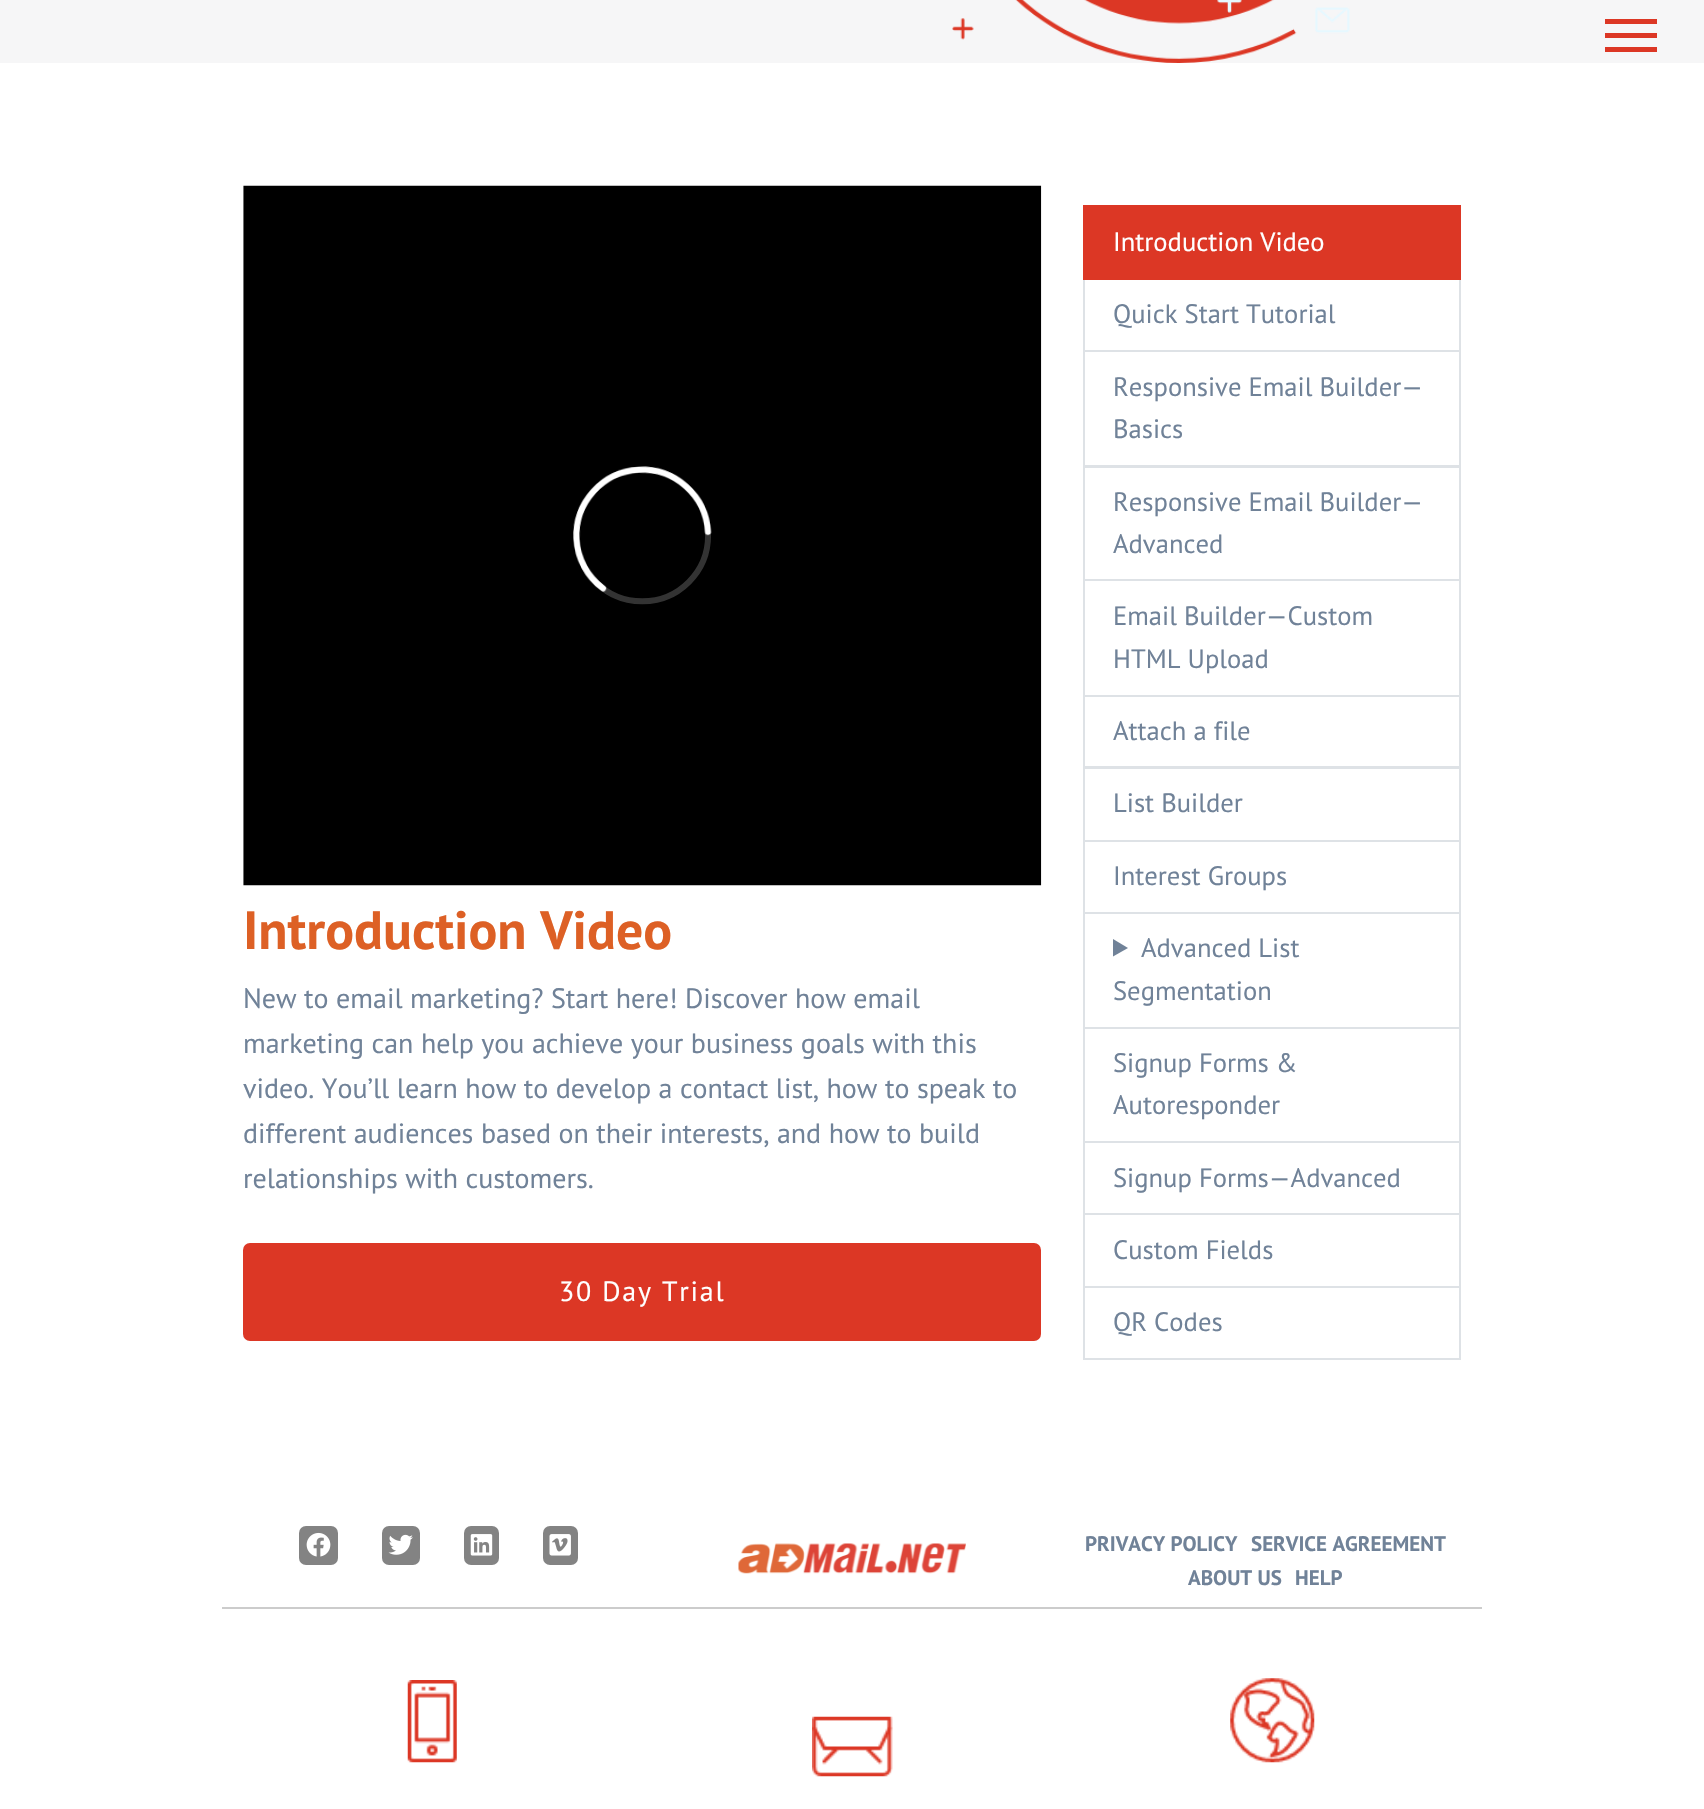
void draw(SkCanvas* canvas) {
    SkPaint paint;
    paint.setAntiAlias(true);
    auto face = [&](const char* family, int weight, float size, bool italic = false) {
        SkFontStyle style(weight, SkFontStyle::kNormal_Width,
            italic ? SkFontStyle::kItalic_Slant : SkFontStyle::kUpright_Slant);
        SkFont result(fontMgr->matchFamilyStyle(family, style), size);
        result.setSubpixel(true);
        return result;
    };
    auto write = [&](const char* s, float x, float y, const SkFont& font, SkColor color) {
        SkPaint ink(SkColor4f::FromColor(color));
        ink.setAntiAlias(true);
        canvas->drawString(s, x, y, font, ink);
    };
    auto writeSpaced = [&](const char* s, float x, float y, const SkFont& font, const SkPaint& ink, float letter, float word) {
        std::vector<SkGlyphID> glyphs(font.countText(s, strlen(s), SkTextEncoding::kUTF8));
        std::vector<float> xs(glyphs.size());
        font.textToGlyphs(s, strlen(s), SkTextEncoding::kUTF8, glyphs);
        font.getXPos(glyphs, xs, x);
        float extra = 0;
        for (size_t i = 0; i < glyphs.size(); i++) {
            xs[i] += extra;
            extra += letter + word * (glyphs[i] == font.unicharToGlyph(' '));
        }
        canvas->drawTextBlob(SkTextBlob::MakeFromPosHGlyphs(glyphs, xs, y, font), 0, 0, ink);
    };
    auto block = [&](float x, float y, float w, float h, SkColor color) {
        SkPaint ink(SkColor4f::FromColor(color));
        ink.setAntiAlias(true);
        canvas->drawRect(SkRect::MakeXYWH(x, y, w, h), ink);
    };
    auto card = [&](float x, float y, float w, float h, float radius, SkColor color) {
        SkPaint ink(SkColor4f::FromColor(color));
        ink.setAntiAlias(true);
        canvas->drawRoundRect(SkRect::MakeXYWH(x, y, w, h), radius, radius, ink);
    };
    auto paste = [&](const char* path, float x, float y, float w, float h) {
        auto image = SkImages::DeferredFromEncodedData(SkData::MakeFromFileName(path));
        canvas->drawImageRect(image, SkRect::MakeXYWH(x, y, w, h), SkSamplingOptions());
    };
    canvas->clear(SK_ColorWHITE);
    block(0, 0, 1704, 63, SkColorSetRGB(246, 246, 247));
    block(1605, 19, 52, 5, SkColorSetRGB(220, 55, 37));
    block(1605, 33, 52, 5, SkColorSetRGB(220, 55, 37));
    block(1605, 47, 52, 5, SkColorSetRGB(220, 55, 37));
    paste("pic1.png", 952, 0, 398, 63);
    paste("pic2.png", 243, 185, 799, 701);
    auto kFont1 = face("PT Sans", 700, 53.75f);
    write("Introduction Video", 243, 949, kFont1, SkColorSetRGB(221, 96, 37));
    auto kFont2 = face("PT Sans", 400, 28);
    write("New to email marketing? Start here! Discover how email", 243, 1008, kFont2, SkColorSetRGB(112, 130, 152));
    write("marketing can help you achieve your business goals with this", 243, 1053, kFont2, SkColorSetRGB(112, 130, 152));
    write("video. You’ll learn how to develop a contact list, how to speak to", 243, 1098, kFont2, SkColorSetRGB(112, 130, 152));
    write("different audiences based on their interests, and how to build", 243, 1143, kFont2, SkColorSetRGB(112, 130, 152));
    write("relationships with customers.", 243, 1188, kFont2, SkColorSetRGB(112, 130, 152));
    card(243, 1243, 798, 98, 7, SkColorSetRGB(220, 55, 37));
    paint.setColor(SK_ColorWHITE);
    writeSpaced("30 Day Trial", 559, 1301, kFont2, paint, 1.75f, 0);
    paint.setStyle(SkPaint::kStroke_Style);
    paint.setStrokeWidth(2);
    paint.setColor(SkColorSetRGB(222, 226, 230));
    canvas->drawRect(SkRect::MakeXYWH(1084, 279, 376, 72), paint);
    block(1083, 205, 378, 75, SkColorSetRGB(220, 55, 37));
    auto kFont3 = face("PT Sans", 400, 26.6f);
    write("Introduction Video", 1113, 251, kFont3, SK_ColorWHITE);
    write("Quick Start Tutorial", 1113, 323, kFont3, SkColorSetRGB(112, 130, 152));
    canvas->drawRect(SkRect::MakeXYWH(1084, 351, 376, 115), paint);
    write("Responsive Email Builder—", 1113, 396, kFont3, SkColorSetRGB(112, 130, 152));
    write("Basics", 1113, 438, kFont3, SkColorSetRGB(112, 130, 152));
    canvas->drawRect(SkRect::MakeXYWH(1084, 467, 376, 113), paint);
    write("Responsive Email Builder—", 1113, 511, kFont3, SkColorSetRGB(112, 130, 152));
    write("Advanced", 1113, 553, kFont3, SkColorSetRGB(112, 130, 152));
    canvas->drawRect(SkRect::MakeXYWH(1084, 580, 376, 116), paint);
    write("Email Builder—Custom", 1113, 625, kFont3, SkColorSetRGB(112, 130, 152));
    write("HTML Upload", 1113, 668, kFont3, SkColorSetRGB(112, 130, 152));
    canvas->drawRect(SkRect::MakeXYWH(1084, 696, 376, 71), paint);
    write("Attach a file", 1113, 740, kFont3, SkColorSetRGB(112, 130, 152));
    canvas->drawRect(SkRect::MakeXYWH(1084, 768, 376, 73), paint);
    write("List Builder", 1113, 812, kFont3, SkColorSetRGB(112, 130, 152));
    canvas->drawRect(SkRect::MakeXYWH(1084, 841, 376, 72), paint);
    write("Interest Groups", 1113, 885, kFont3, SkColorSetRGB(112, 130, 152));
    canvas->drawRect(SkRect::MakeXYWH(1084, 913, 376, 115), paint);
    paint.setStyle(SkPaint::kFill_Style);
    paint.setColor(SkColorSetRGB(112, 130, 152));
    canvas->drawPath(SkPathBuilder().moveTo(1113, 939).lineTo(1128, 948).lineTo(1113, 956.5f).close().detach(), paint);
    write("Advanced List", 1141, 957, kFont3, SkColorSetRGB(112, 130, 152));
    write("Segmentation", 1113, 1000, kFont3, SkColorSetRGB(112, 130, 152));
    paint.setStyle(SkPaint::kStroke_Style);
    paint.setColor(SkColorSetRGB(222, 226, 230));
    canvas->drawRect(SkRect::MakeXYWH(1084, 1028, 376, 114), paint);
    write("Signup Forms &", 1113, 1072, kFont3, SkColorSetRGB(112, 130, 152));
    write("Autoresponder", 1113, 1114, kFont3, SkColorSetRGB(112, 130, 152));
    canvas->drawRect(SkRect::MakeXYWH(1084, 1142, 376, 72), paint);
    write("Signup Forms—Advanced", 1113, 1187, kFont3, SkColorSetRGB(112, 130, 152));
    canvas->drawRect(SkRect::MakeXYWH(1084, 1214, 376, 73), paint);
    write("Custom Fields", 1113, 1259, kFont3, SkColorSetRGB(112, 130, 152));
    canvas->drawRect(SkRect::MakeXYWH(1084, 1287, 376, 72), paint);
    write("QR Codes", 1113, 1331, kFont3, SkColorSetRGB(112, 130, 152));
    block(222, 1607, 1260, 2, SkColorSetRGB(204, 204, 204));
    card(299, 1526, 39, 39, 7, SkColorSetRGB(131, 131, 131));
    paste("pic3.png", 306, 1532, 25, 25);
    card(382, 1526, 38, 39, 7, SkColorSetRGB(131, 131, 131));
    paste("pic4.png", 388, 1534, 25, 21);
    card(464, 1526, 35, 39, 7, SkColorSetRGB(131, 131, 131));
    paste("pic5.png", 470, 1534, 23, 22);
    card(543, 1526, 35, 39, 7, SkColorSetRGB(131, 131, 131));
    paste("pic6.png", 549, 1534, 22, 22);
    paste("pic7.png", 738, 1543, 228, 31);
    auto kFont4 = face("PT Sans", 700, 21);
    write("PRIVACY POLICY", 1085, 1551, kFont4, SkColorSetRGB(112, 130, 152));
    write("SERVICE AGREEMENT", 1251, 1551, kFont4, SkColorSetRGB(112, 130, 152));
    write("ABOUT US", 1188, 1585, kFont4, SkColorSetRGB(112, 130, 152));
    write("HELP", 1295, 1585, kFont4, SkColorSetRGB(112, 130, 152));
    paste("pic8.png", 407, 1680, 50, 83);
    paste("pic9.png", 812, 1716, 81, 61);
    paste("pic10.png", 1230, 1678, 85, 85);
}
